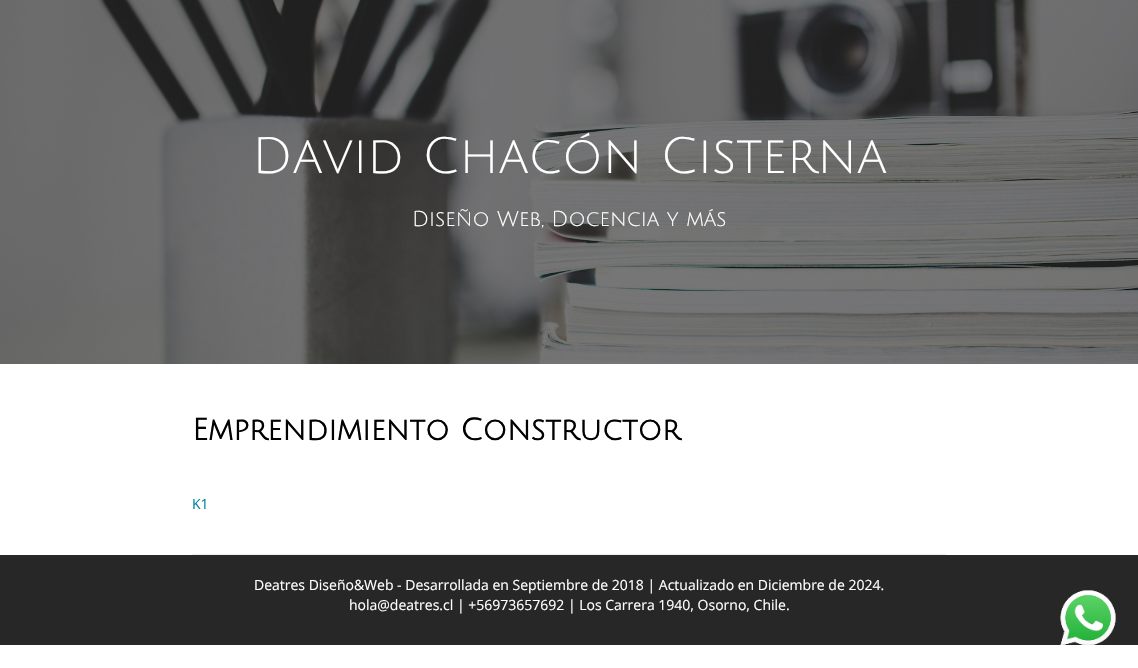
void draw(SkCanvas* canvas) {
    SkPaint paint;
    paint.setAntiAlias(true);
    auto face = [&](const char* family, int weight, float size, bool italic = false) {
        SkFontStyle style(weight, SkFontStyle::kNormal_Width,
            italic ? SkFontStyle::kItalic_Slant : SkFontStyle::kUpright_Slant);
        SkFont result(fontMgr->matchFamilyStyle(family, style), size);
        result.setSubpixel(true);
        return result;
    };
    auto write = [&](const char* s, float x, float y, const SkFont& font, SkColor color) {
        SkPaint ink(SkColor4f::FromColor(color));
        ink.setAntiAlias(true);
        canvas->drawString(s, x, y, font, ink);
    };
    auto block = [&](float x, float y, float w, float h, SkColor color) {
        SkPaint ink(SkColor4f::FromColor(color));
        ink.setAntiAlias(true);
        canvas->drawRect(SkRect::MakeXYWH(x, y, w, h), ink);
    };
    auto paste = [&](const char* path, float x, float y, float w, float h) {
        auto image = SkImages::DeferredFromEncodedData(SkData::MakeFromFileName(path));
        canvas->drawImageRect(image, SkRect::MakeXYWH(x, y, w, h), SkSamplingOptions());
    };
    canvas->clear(SK_ColorWHITE);
    paste("pic1.png", 0, 0, 1138, 364);
    auto kFont1 = face("Julius Sans One", 400, 50);
    write("David Chacón Cisterna", 252, 173, kFont1, SK_ColorWHITE);
    auto kFont2 = face("Julius Sans One", 400, 21);
    write("Diseño Web, Docencia y más", 412, 226, kFont2, SK_ColorWHITE);
    block(192, 554, 754, 1, SkColorSetRGB(238, 238, 238));
    auto kFont3 = face("Julius Sans One", 700, 30);
    write("Emprendimiento Constructor", 192, 440, kFont3, SK_ColorBLACK);
    auto kFont4 = face("Open Sans", 400, 14);
    write("K1", 192, 509, kFont4, SkColorSetRGB(0, 133, 161));
    block(0, 555, 1138, 90, SkColorSetRGB(39, 39, 39));
    write("Deatres Diseño&Web - Desarrollada en Septiembre de 2018 | Actualizado en Diciembre de 2024.", 254, 590, kFont4, SK_ColorWHITE);
    write("hola@deatres.cl | +56973657692 | Los Carrera 1940, Osorno, Chile.", 349, 610, kFont4, SK_ColorWHITE);
    paste("pic2.png", 1060, 590, 56, 55);
}
